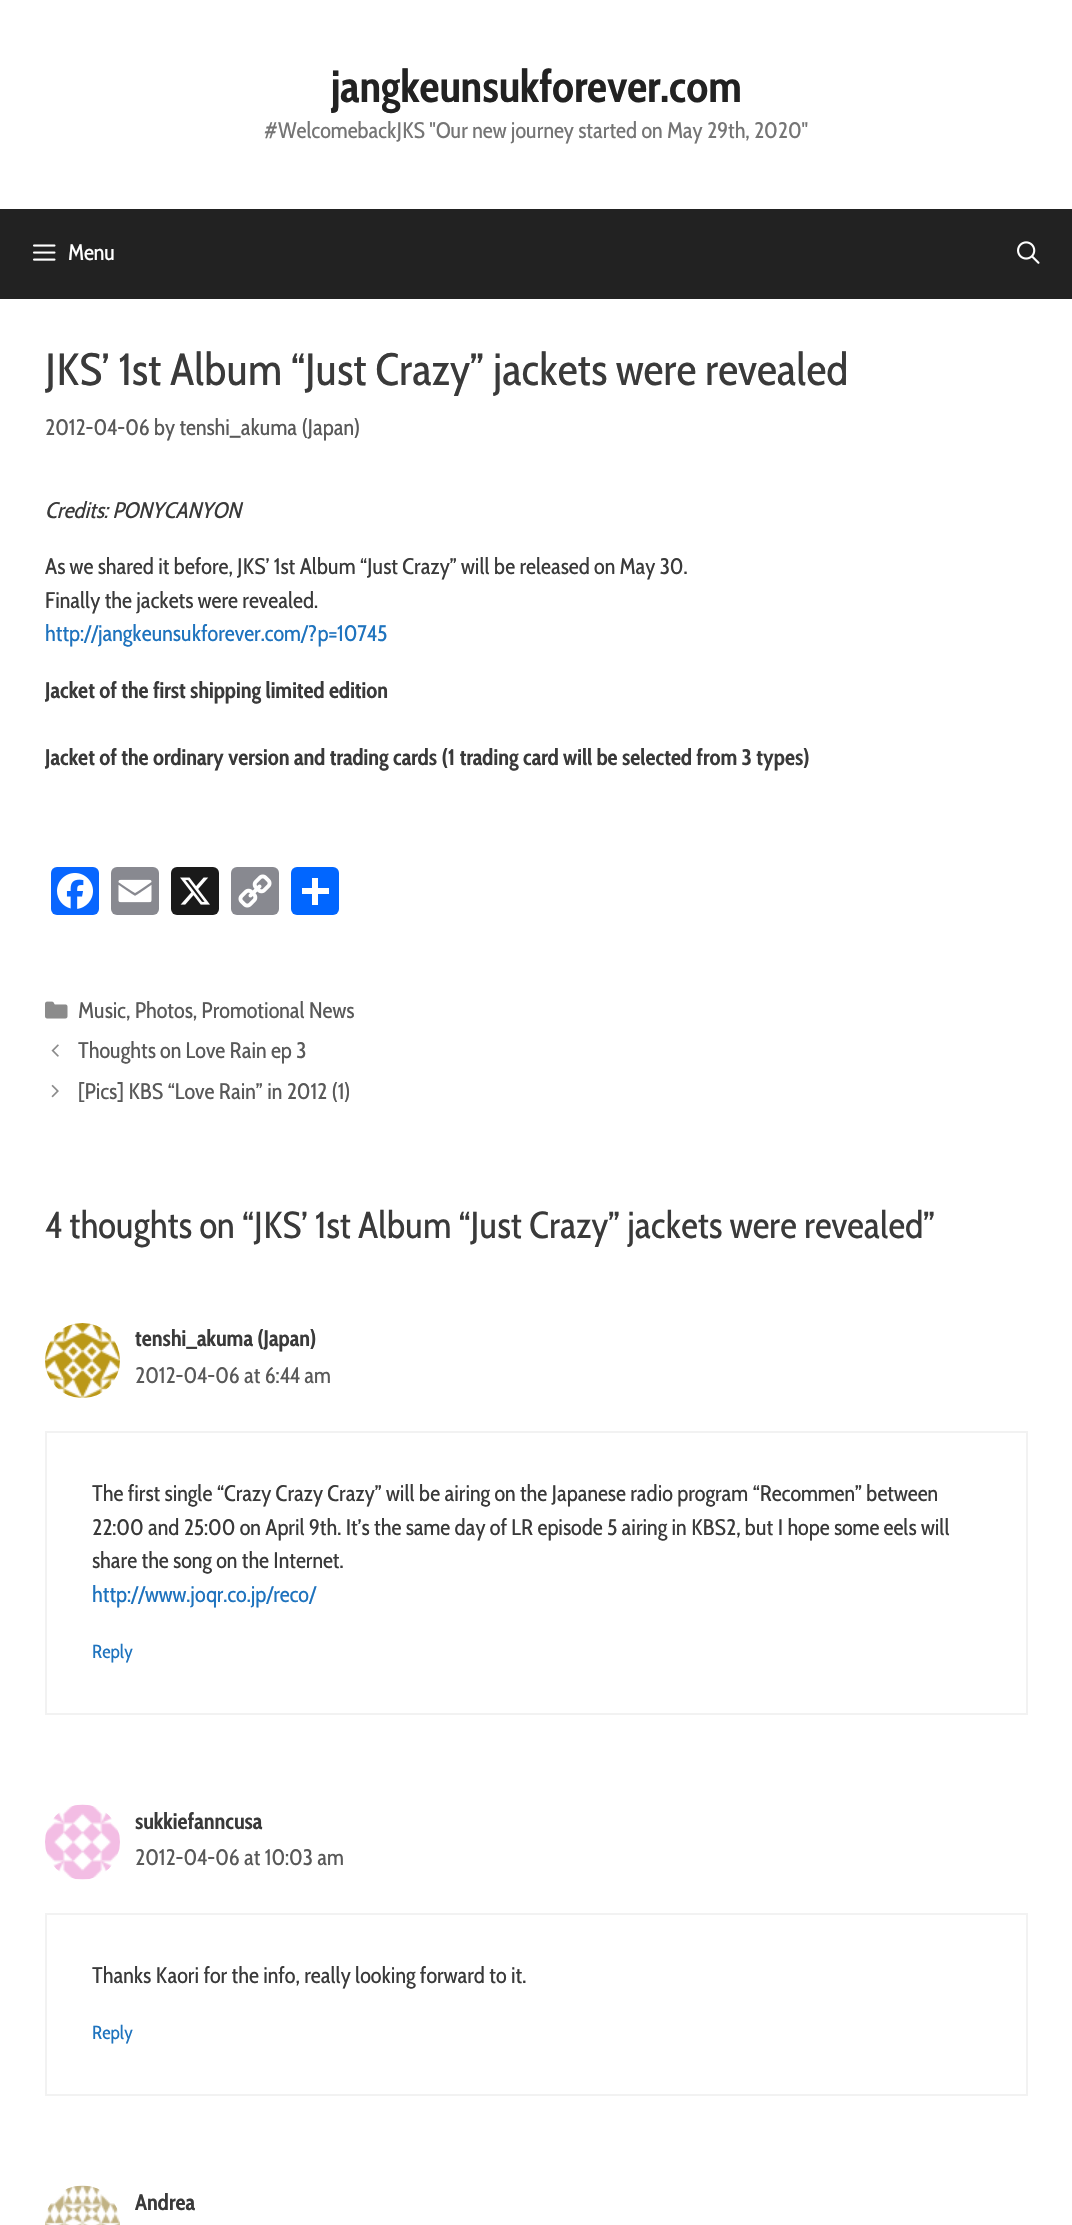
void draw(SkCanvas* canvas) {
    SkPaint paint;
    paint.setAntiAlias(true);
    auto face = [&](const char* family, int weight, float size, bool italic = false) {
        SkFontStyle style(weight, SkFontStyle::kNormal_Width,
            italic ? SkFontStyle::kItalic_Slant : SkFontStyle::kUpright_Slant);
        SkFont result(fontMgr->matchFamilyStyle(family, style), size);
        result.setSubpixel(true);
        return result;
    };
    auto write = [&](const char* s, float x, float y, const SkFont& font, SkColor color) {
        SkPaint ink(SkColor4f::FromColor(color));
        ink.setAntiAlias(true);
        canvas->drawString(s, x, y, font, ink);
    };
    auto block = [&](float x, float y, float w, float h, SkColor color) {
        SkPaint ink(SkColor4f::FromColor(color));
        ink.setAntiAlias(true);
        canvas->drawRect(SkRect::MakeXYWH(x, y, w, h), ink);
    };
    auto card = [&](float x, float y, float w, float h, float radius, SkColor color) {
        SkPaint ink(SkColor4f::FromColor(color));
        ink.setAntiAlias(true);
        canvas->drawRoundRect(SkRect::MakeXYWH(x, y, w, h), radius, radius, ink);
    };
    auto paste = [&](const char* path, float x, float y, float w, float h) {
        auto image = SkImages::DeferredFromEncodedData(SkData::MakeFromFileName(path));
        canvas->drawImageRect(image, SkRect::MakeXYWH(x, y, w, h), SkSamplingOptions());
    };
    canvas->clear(SK_ColorWHITE);
    auto kFont1 = face("Cabin Condensed", 700, 45);
    write("jangkeunsukforever.com", 331, 102, kFont1, SkColorSetRGB(34, 34, 34));
    auto kFont2 = face("Cabin Condensed", 400, 22.5f);
    write("#WelcomebackJKS \"Our new journey started on May 29th, 2020\"", 264, 138, kFont2, SkColorSetRGB(117, 117, 117));
    block(0, 209, 1072, 90, SkColorSetRGB(34, 34, 34));
    paste("pic1.png", 33, 244, 23, 17);
    write("Menu", 68, 260, kFont2, SK_ColorWHITE);
    paste("pic2.png", 1017, 241, 23, 23);
    auto kFont3 = face("Cabin Condensed", 400, 45);
    write("JKS’ 1st Album “Just Crazy” jackets were revealed", 45, 385, kFont3, SkColorSetRGB(58, 58, 58));
    write("2012-04-06 by tenshi_akuma (Japan)", 45, 435, kFont2, SkColorSetRGB(89, 89, 89));
    auto kFont4 = face("Cabin Condensed", 400, 22.5f, true);
    write("Credits: PONYCANYON", 45, 518, kFont4, SkColorSetRGB(58, 58, 58));
    write("As we shared it before, JKS’ 1st Album “Just Crazy” will be released on May 30.", 45, 574, kFont2, SkColorSetRGB(58, 58, 58));
    write("Finally the jackets were revealed.", 45, 608, kFont2, SkColorSetRGB(58, 58, 58));
    write("http://jangkeunsukforever.com/?p=10745", 45, 641, kFont2, SkColorSetRGB(30, 115, 190));
    auto kFont5 = face("Cabin Condensed", 700, 22.5f);
    write("Jacket of the first shipping limited edition", 45, 698, kFont5, SkColorSetRGB(58, 58, 58));
    write("Jacket of the ordinary version and trading cards (1 trading card will be selected from 3 types)", 45, 765, kFont5, SkColorSetRGB(58, 58, 58));
    card(51, 867, 48, 48, 6, SkColorSetRGB(8, 102, 255));
    paste("pic3.png", 57, 873, 36, 36);
    card(111, 867, 48, 48, 6, SkColorSetRGB(136, 137, 144));
    paste("pic4.png", 118, 879, 34, 24);
    card(171, 867, 48, 48, 6, SkColorSetRGB(26, 26, 26));
    paste("pic5.png", 180, 877, 30, 28);
    card(231, 867, 48, 48, 6, SkColorSetRGB(136, 137, 144));
    paste("pic6.png", 238, 874, 34, 34);
    card(291, 867, 48, 48, 6, SkColorSetRGB(1, 102, 255));
    block(312, 878, 6, 27, SK_ColorWHITE);
    block(302, 888, 27, 6, SK_ColorWHITE);
    paste("pic7.png", 45, 1001, 23, 18);
    write("Music, Photos, Promotional News", 78, 1018, kFont2, SkColorSetRGB(89, 89, 89));
    paste("pic8.png", 51, 1044, 8, 13);
    write("Thoughts on Love Rain ep 3", 78, 1058, kFont2, SkColorSetRGB(89, 89, 89));
    paste("pic9.png", 51, 1084, 8, 14);
    write("[Pics] KBS “Love Rain” in 2012 (1)", 78, 1099, kFont2, SkColorSetRGB(89, 89, 89));
    auto kFont6 = face("Cabin Condensed", 400, 37.5f);
    write("4 thoughts on “JKS’ 1st Album “Just Crazy” jackets were revealed”", 45, 1238, kFont6, SkColorSetRGB(58, 58, 58));
    paste("pic10.png", 45, 1323, 75, 75);
    write("tenshi_akuma (Japan)", 135, 1346, kFont5, SkColorSetRGB(58, 58, 58));
    write("2012-04-06 at 6:44 am", 135, 1383, kFont2, SkColorSetRGB(89, 89, 89));
    paint.setStyle(SkPaint::kStroke_Style);
    paint.setStrokeWidth(2);
    paint.setColor(SkColorSetRGB(242, 242, 242));
    canvas->drawRect(SkRect::MakeXYWH(46, 1432, 981, 282), paint);
    write("The first single “Crazy Crazy Crazy” will be airing on the Japanese radio program “Recommen” between", 92, 1501, kFont2, SkColorSetRGB(58, 58, 58));
    write("22:00 and 25:00 on April 9th. It’s the same day of LR episode 5 airing in KBS2, but I hope some eels will", 92, 1535, kFont2, SkColorSetRGB(58, 58, 58));
    write("share the song on the Internet.", 92, 1568, kFont2, SkColorSetRGB(58, 58, 58));
    write("http://www.joqr.co.jp/reco/", 92, 1602, kFont2, SkColorSetRGB(30, 115, 190));
    auto kFont7 = face("Cabin Condensed", 400, 19);
    write("Reply", 92, 1658, kFont7, SkColorSetRGB(30, 115, 190));
    paste("pic11.png", 45, 1804, 75, 76);
    write("sukkiefanncusa", 135, 1829, kFont5, SkColorSetRGB(58, 58, 58));
    write("2012-04-06 at 10:03 am", 135, 1865, kFont2, SkColorSetRGB(89, 89, 89));
    canvas->drawRect(SkRect::MakeXYWH(46, 1914, 981, 181), paint);
    write("Thanks Kaori for the info, really looking forward to it.", 92, 1983, kFont2, SkColorSetRGB(58, 58, 58));
    write("Reply", 92, 2039, kFont7, SkColorSetRGB(30, 115, 190));
    paste("pic12.png", 45, 2185, 75, 40);
    write("Andrea", 135, 2210, kFont5, SkColorSetRGB(58, 58, 58));
}
